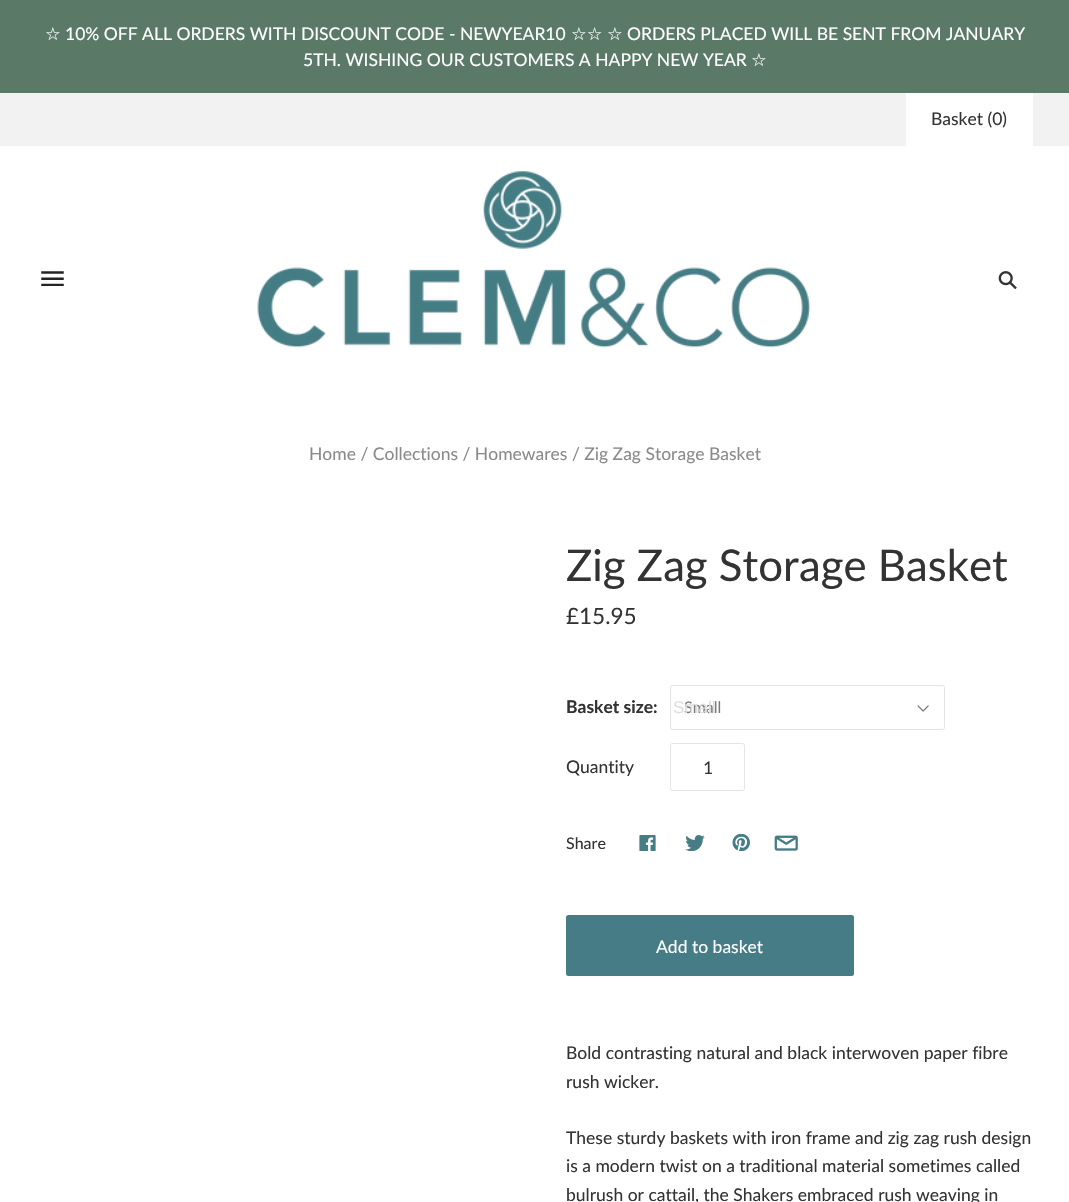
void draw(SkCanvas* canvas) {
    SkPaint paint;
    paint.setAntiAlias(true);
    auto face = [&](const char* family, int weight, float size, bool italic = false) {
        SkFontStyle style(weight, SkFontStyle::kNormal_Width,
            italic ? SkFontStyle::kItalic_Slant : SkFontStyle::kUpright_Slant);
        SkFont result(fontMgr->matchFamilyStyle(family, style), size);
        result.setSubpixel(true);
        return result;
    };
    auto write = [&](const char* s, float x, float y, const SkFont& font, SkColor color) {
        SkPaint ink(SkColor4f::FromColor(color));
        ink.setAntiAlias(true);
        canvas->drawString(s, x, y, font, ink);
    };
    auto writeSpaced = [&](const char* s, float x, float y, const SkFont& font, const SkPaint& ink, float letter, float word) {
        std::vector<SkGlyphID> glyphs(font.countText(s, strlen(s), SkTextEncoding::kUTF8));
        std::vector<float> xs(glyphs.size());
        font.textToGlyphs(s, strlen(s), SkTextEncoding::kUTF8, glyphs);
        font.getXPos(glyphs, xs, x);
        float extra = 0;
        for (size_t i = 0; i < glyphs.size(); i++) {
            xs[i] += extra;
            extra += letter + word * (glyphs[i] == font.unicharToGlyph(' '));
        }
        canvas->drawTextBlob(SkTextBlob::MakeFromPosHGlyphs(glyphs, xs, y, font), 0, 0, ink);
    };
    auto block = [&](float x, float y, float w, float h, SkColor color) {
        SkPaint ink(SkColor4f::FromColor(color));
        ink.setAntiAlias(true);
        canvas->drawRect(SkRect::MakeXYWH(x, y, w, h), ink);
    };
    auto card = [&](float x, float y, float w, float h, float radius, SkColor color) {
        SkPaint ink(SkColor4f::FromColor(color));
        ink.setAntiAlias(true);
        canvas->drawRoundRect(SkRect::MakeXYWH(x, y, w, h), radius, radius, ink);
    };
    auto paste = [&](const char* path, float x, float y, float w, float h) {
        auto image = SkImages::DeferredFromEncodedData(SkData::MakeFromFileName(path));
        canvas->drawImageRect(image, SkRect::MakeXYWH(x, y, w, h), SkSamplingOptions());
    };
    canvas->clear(SK_ColorWHITE);
    block(0, 0, 1069, 93, SkColorSetRGB(91, 121, 103));
    auto kFont1 = face("DejaVu Sans", 400, 17.5f);
    write("☆", 45, 40, kFont1, SK_ColorWHITE);
    auto kFont2 = face("Lato", 400, 17.5f);
    write("10% OFF ALL ORDERS WITH DISCOUNT CODE - NEWYEAR10", 65, 40, kFont2, SK_ColorWHITE);
    paint.setColor(SK_ColorWHITE);
    writeSpaced("☆☆ ☆", 571, 40, kFont1, paint, 0, -1);
    write("ORDERS PLACED WILL BE SENT FROM JANUARY", 627, 40, kFont2, SK_ColorWHITE);
    write("5TH. WISHING OUR CUSTOMERS A HAPPY NEW YEAR", 303, 66, kFont2, SK_ColorWHITE);
    write("☆", 751, 66, kFont1, SK_ColorWHITE);
    block(0, 93, 1069, 53, SkColorSetRGB(242, 242, 242));
    block(906, 93, 127, 53, SK_ColorWHITE);
    write("Basket (0)", 931, 125, kFont2, SkColorSetRGB(51, 51, 51));
    paste("pic1.png", 41, 271, 23, 15);
    paste("pic2.png", 257, 171, 554, 177);
    paste("pic3.png", 998, 271, 19, 19);
    write("Home / Collections / Homewares / Zig Zag Storage Basket", 309, 460, kFont2, SkColorSetRGB(138, 138, 138));
    auto kFont3 = face("Lato", 400, 43.75f);
    write("Zig Zag Storage Basket", 566, 581, kFont3, SkColorSetRGB(51, 51, 51));
    auto kFont4 = face("Lato", 400, 22.5f);
    write("£15.95", 566, 624, kFont4, SkColorSetRGB(51, 51, 51));
    auto kFont5 = face("Lato", 700, 17.5f);
    write("Basket size:", 566, 713, kFont5, SkColorSetRGB(51, 51, 51));
    paint.setStyle(SkPaint::kStroke_Style);
    paint.setStrokeWidth(1);
    paint.setColor(SkColorSetRGB(227, 227, 227));
    canvas->drawRoundRect(SkRect::MakeXYWH(670.5f, 685.5f, 274, 44), 2, 2, paint);
    auto kFont6 = face("Lato", 400, 16);
    write("Small", 684, 713, kFont6, SkColorSetRGB(120, 120, 120));
    auto kFont7 = face("Liberation Sans", 400, 17);
    write("Small", 673, 713, kFont7, SkColorSetRGB(222, 222, 222));
    paste("pic4.png", 917, 705, 12, 7);
    write("Quantity", 566, 773, kFont2, SkColorSetRGB(51, 51, 51));
    paint.setColor(SkColorSetRGB(228, 228, 228));
    canvas->drawRoundRect(SkRect::MakeXYWH(670.5f, 743.5f, 74, 47), 2, 2, paint);
    write("1", 703, 774, kFont2, SkColorSetRGB(51, 51, 51));
    write("Share", 566, 849, kFont6, SkColorSetRGB(51, 51, 51));
    paste("pic5.png", 639, 835, 17, 16);
    paste("pic6.png", 685, 835, 20, 16);
    paste("pic7.png", 732, 834, 18, 17);
    paste("pic8.png", 774, 835, 24, 16);
    card(566, 915, 288, 61, 2.5f, SkColorSetRGB(69, 124, 133));
    write("Add to basket", 656, 953, kFont2, SK_ColorWHITE);
    write("Bold contrasting natural and black interwoven paper fibre", 566, 1059, kFont2, SkColorSetRGB(51, 51, 51));
    write("rush wicker.", 566, 1088, kFont2, SkColorSetRGB(51, 51, 51));
    write("These sturdy baskets with iron frame and zig zag rush design", 566, 1144, kFont2, SkColorSetRGB(51, 51, 51));
    write("is a modern twist on a traditional material sometimes called", 566, 1172, kFont2, SkColorSetRGB(51, 51, 51));
    write("bulrush or cattail, the Shakers embraced rush weaving in", 566, 1201, kFont2, SkColorSetRGB(51, 51, 51));
}
